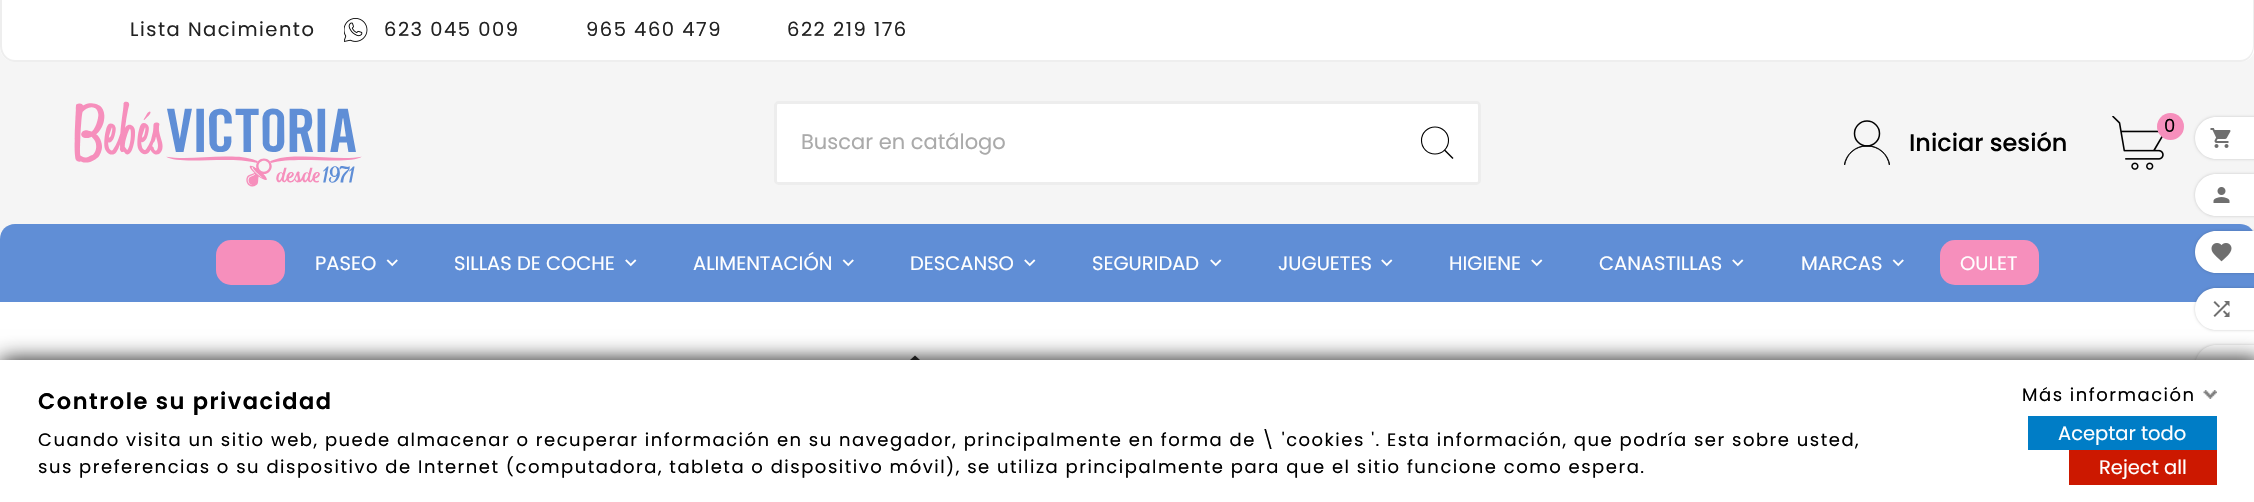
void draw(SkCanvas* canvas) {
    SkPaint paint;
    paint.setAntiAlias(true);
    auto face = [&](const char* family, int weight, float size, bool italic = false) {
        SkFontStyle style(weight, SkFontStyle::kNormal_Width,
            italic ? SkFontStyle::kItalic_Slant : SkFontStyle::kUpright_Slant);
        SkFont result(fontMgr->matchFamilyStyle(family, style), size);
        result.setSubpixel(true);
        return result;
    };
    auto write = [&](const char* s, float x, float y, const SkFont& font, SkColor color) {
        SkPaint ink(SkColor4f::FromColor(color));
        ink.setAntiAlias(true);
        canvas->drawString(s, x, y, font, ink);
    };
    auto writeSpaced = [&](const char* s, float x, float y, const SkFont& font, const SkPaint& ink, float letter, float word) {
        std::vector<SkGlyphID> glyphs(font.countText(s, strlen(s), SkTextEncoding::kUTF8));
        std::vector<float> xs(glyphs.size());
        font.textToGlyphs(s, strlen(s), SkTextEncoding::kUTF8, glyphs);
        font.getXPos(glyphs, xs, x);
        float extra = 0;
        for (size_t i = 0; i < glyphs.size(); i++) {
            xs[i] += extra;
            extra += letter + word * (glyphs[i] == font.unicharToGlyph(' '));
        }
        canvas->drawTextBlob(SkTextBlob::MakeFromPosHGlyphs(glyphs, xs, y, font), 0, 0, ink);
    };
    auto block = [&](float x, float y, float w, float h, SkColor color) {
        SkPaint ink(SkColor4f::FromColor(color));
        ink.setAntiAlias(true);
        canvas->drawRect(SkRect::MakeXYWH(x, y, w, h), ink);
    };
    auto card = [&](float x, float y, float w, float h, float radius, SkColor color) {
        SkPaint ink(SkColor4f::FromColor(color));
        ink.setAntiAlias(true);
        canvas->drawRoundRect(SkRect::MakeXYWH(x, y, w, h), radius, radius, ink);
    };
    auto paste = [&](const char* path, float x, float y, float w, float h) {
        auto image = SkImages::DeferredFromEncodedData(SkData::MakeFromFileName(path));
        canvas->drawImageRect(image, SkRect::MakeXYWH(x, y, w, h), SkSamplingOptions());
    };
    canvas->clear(SkColorSetRGB(245, 245, 245));
    paint.setColor(SK_ColorWHITE);
    canvas->drawPath(SkPathBuilder().moveTo(0, 0).lineTo(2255, 0).lineTo(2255, 47).cubicTo(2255, 55.5f, 2248.5f, 62, 2240, 62).lineTo(15, 62).cubicTo(6.5f, 62, 0, 55.5f, 0, 47).close().detach(), paint);
    paint.setColor(SkColorSetRGB(238, 238, 238));
    canvas->drawPath(SkPathBuilder(SkPathFillType::kEvenOdd).moveTo(0, 0).lineTo(2254, 0).lineTo(2254, 46).cubicTo(2254, 55, 2248, 62, 2240, 62).lineTo(15, 62).cubicTo(7, 62, 0, 55, 0, 46).close().moveTo(2, 0).lineTo(2253, 0).lineTo(2253, 46).cubicTo(2253, 54, 2247, 60, 2240, 60).lineTo(15, 60).cubicTo(8, 60, 2, 54, 2, 46).close().detach(), paint);
    auto kFont1 = face("Poppins", 400, 19.5f);
    paint.setColor(SkColorSetRGB(34, 34, 34));
    writeSpaced("Lista Nacimiento", 130, 36, kFont1, paint, 1.5f, 0);
    paste("pic1.png", 344, 18, 24, 24);
    writeSpaced("623 045 009", 384, 36, kFont1, paint, 1.5f, 0);
    writeSpaced("965 460 479", 586, 36, kFont1, paint, 1.5f, 0);
    writeSpaced("622 219 176", 787, 36, kFont1, paint, 1.5f, 0);
    paste("pic2.png", 74, 101, 288, 86);
    card(774, 101, 707, 84, 5, SK_ColorWHITE);
    paint.setStyle(SkPaint::kStroke_Style);
    paint.setStrokeWidth(3);
    paint.setColor(SkColorSetARGB(18, 0, 0, 0));
    canvas->drawRoundRect(SkRect::MakeXYWH(775.5f, 102.5f, 704, 81), 3.5f, 3.5f, paint);
    paint.setStyle(SkPaint::kFill_Style);
    paint.setColor(SK_ColorWHITE);
    canvas->drawPath(SkPathBuilder().moveTo(778.5f, 104).lineTo(1397, 104).lineTo(1397, 182).lineTo(778.5f, 182).cubicTo(777.5f, 182, 777, 181.5f, 777, 180.5f).lineTo(777, 105.5f).cubicTo(777, 104.5f, 777.5f, 104, 778.5f, 104).close().detach(), paint);
    auto kFont2 = face("Poppins", 400, 21);
    write("Buscar en catálogo", 801, 149, kFont2, SkColorSetRGB(170, 170, 170));
    canvas->drawPath(SkPathBuilder().moveTo(1397, 104).lineTo(1476.5f, 104).cubicTo(1477.5f, 104, 1478, 104.5f, 1478, 105.5f).lineTo(1478, 180.5f).cubicTo(1478, 181.5f, 1477.5f, 182, 1476.5f, 182).lineTo(1397, 182).close().detach(), paint);
    paint.setColor(SK_ColorBLACK);
    canvas->drawPath(SkPathBuilder().moveTo(1452.5f, 159).lineTo(1444, 150.5f).lineTo(1445, 149.5f).lineTo(1453.5f, 158).close().detach(), paint);
    paint.setStyle(SkPaint::kStroke_Style);
    paint.setStrokeWidth(1.1f);
    canvas->drawCircle(1435, 140.5f, 13.5f, paint);
    paste("pic3.png", 2112, 116, 52, 54);
    paint.setStyle(SkPaint::kFill_Style);
    paint.setColor(SkColorSetRGB(246, 143, 188));
    canvas->drawCircle(2170.5f, 126.5f, 13.5f, paint);
    auto kFont3 = face("Poppins", 400, 18);
    paint.setColor(SK_ColorBLACK);
    writeSpaced("0", 2164, 132, kFont3, paint, 1.5f, 0);
    canvas->save();
    canvas->clipRect(SkRect::MakeXYWH(1844, 120, 46, 45));
    paint.setStyle(SkPaint::kStroke_Style);
    paint.setStrokeWidth(0.9f);
    canvas->drawPath(SkPathBuilder().moveTo(1867, 146).cubicTo(1878.5f, 146, 1888, 154.5f, 1889.5f, 166).lineTo(1890, 166).cubicTo(1886, 139, 1848, 139, 1844, 166).lineTo(1844.5f, 166).cubicTo(1846, 154.5f, 1855.5f, 146, 1867, 146).close().detach(), paint);
    canvas->restore();
    paint.setStrokeWidth(1.5f);
    canvas->drawCircle(1867, 133.5f, 12.5f, paint);
    auto kFont4 = face("Poppins", 500, 24);
    write("Iniciar sesión", 1909, 151, kFont4, SK_ColorBLACK);
    paint.setStyle(SkPaint::kFill_Style);
    paint.setColor(SkColorSetRGB(96, 142, 214));
    canvas->drawPath(SkPathBuilder().moveTo(15, 224).lineTo(2240, 224).cubicTo(2248.5f, 224, 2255, 230.5f, 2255, 239).lineTo(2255, 302).lineTo(0, 302).lineTo(0, 239).cubicTo(0, 230.5f, 6.5f, 224, 15, 224).close().detach(), paint);
    card(216, 240, 69, 45, 15, SkColorSetRGB(246, 143, 188));
    write("PASEO", 315, 270, kFont1, SK_ColorWHITE);
    paste("pic4.png", 386, 259, 12, 8);
    write("SILLAS DE COCHE", 454, 270, kFont1, SK_ColorWHITE);
    paste("pic5.png", 625, 259, 12, 8);
    write("ALIMENTACIÓN", 693, 270, kFont1, SK_ColorWHITE);
    paste("pic4.png", 842, 259, 12, 8);
    write("DESCANSO", 910, 270, kFont1, SK_ColorWHITE);
    paste("pic5.png", 1024, 259, 12, 8);
    write("SEGURIDAD", 1092, 270, kFont1, SK_ColorWHITE);
    paste("pic5.png", 1210, 259, 12, 8);
    write("JUGUETES", 1278, 270, kFont1, SK_ColorWHITE);
    paste("pic5.png", 1381, 259, 12, 8);
    write("HIGIENE", 1449, 270, kFont1, SK_ColorWHITE);
    paste("pic5.png", 1531, 259, 12, 8);
    write("CANASTILLAS", 1599, 270, kFont1, SK_ColorWHITE);
    paste("pic5.png", 1732, 259, 12, 8);
    write("MARCAS", 1801, 270, kFont1, SK_ColorWHITE);
    paste("pic4.png", 1892, 259, 12, 8);
    card(1940, 240, 99, 45, 15, SkColorSetRGB(246, 143, 188));
    write("OULET", 1960, 270, kFont1, SK_ColorWHITE);
    paint.setColor(SkColorSetARGB(51, 0, 0, 0));
    paint.setMaskFilter(SkMaskFilter::MakeBlur(kNormal_SkBlurStyle, 1.5f));
    canvas->drawRoundRect(SkRect::MakeXYWH(2195, 117, 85, 42), 21, 21, paint);
    paint.setMaskFilter(nullptr);
    paint.setColor(SK_ColorWHITE);
    canvas->drawPath(SkPathBuilder().moveTo(2216, 117).lineTo(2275, 117).lineTo(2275, 159).lineTo(2216, 159).cubicTo(2204.5f, 159, 2195, 149.5f, 2195, 138).cubicTo(2195, 126.5f, 2204.5f, 117, 2216, 117).close().detach(), paint);
    paste("pic6.png", 2210, 128, 21, 20);
    paint.setColor(SkColorSetARGB(51, 0, 0, 0));
    paint.setMaskFilter(SkMaskFilter::MakeBlur(kNormal_SkBlurStyle, 1.5f));
    canvas->drawRoundRect(SkRect::MakeXYWH(2195, 174, 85, 42), 21, 21, paint);
    paint.setMaskFilter(nullptr);
    paint.setColor(SK_ColorWHITE);
    canvas->drawPath(SkPathBuilder().moveTo(2216, 174).lineTo(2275, 174).lineTo(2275, 216).lineTo(2216, 216).cubicTo(2204.5f, 216, 2195, 206.5f, 2195, 195).cubicTo(2195, 183.5f, 2204.5f, 174, 2216, 174).close().detach(), paint);
    paste("pic7.png", 2213, 187, 17, 16);
    paint.setColor(SkColorSetARGB(51, 0, 0, 0));
    paint.setMaskFilter(SkMaskFilter::MakeBlur(kNormal_SkBlurStyle, 1.5f));
    canvas->drawRoundRect(SkRect::MakeXYWH(2195, 231, 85, 42), 21, 21, paint);
    paint.setMaskFilter(nullptr);
    paint.setColor(SK_ColorWHITE);
    canvas->drawPath(SkPathBuilder().moveTo(2216, 231).lineTo(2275, 231).lineTo(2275, 273).lineTo(2216, 273).cubicTo(2204.5f, 273, 2195, 263.5f, 2195, 252).cubicTo(2195, 240.5f, 2204.5f, 231, 2216, 231).close().detach(), paint);
    paste("pic8.png", 2211, 243, 21, 19);
    block(0, 302, 2254, 58, SK_ColorWHITE);
    paint.setColor(SkColorSetARGB(51, 0, 0, 0));
    paint.setMaskFilter(SkMaskFilter::MakeBlur(kNormal_SkBlurStyle, 1.5f));
    canvas->drawRoundRect(SkRect::MakeXYWH(2195, 288, 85, 42), 21, 21, paint);
    paint.setMaskFilter(nullptr);
    paint.setColor(SK_ColorWHITE);
    canvas->drawPath(SkPathBuilder().moveTo(2216, 288).lineTo(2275, 288).lineTo(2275, 330).lineTo(2216, 330).cubicTo(2204.5f, 330, 2195, 320.5f, 2195, 309).cubicTo(2195, 297.5f, 2204.5f, 288, 2216, 288).close().detach(), paint);
    paste("pic9.png", 2213, 301, 17, 16);
    paint.setColor(SkColorSetARGB(51, 0, 0, 0));
    paint.setMaskFilter(SkMaskFilter::MakeBlur(kNormal_SkBlurStyle, 1.5f));
    canvas->drawRoundRect(SkRect::MakeXYWH(2195, 345, 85, 42), 21, 21, paint);
    paint.setMaskFilter(nullptr);
    paint.setColor(SK_ColorWHITE);
    canvas->drawPath(SkPathBuilder().moveTo(2216, 345).lineTo(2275, 345).lineTo(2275, 387).lineTo(2216, 387).cubicTo(2204.5f, 387, 2195, 377.5f, 2195, 366).cubicTo(2195, 354.5f, 2204.5f, 345, 2216, 345).close().detach(), paint);
    paste("pic10.png", 910, 355, 10, 5);
    paint.setColor(SkColorSetRGB(18, 18, 18));
    paint.setMaskFilter(SkMaskFilter::MakeBlur(kNormal_SkBlurStyle, 10.5f));
    canvas->drawRect(SkRect::MakeXYWH(0, 360, 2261, 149), paint);
    paint.setMaskFilter(nullptr);
    block(0, 360, 2254, 142, SK_ColorWHITE);
    auto kFont5 = face("Poppins", 600, 22.5f);
    paint.setColor(SK_ColorBLACK);
    writeSpaced("Controle su privacidad", 38, 409, kFont5, paint, 1.5f, 0);
    writeSpaced("Cuando visita un sitio web, puede almacenar o recuperar información en su navegador, principalmente en forma de \\ 'cookies '. Esta información, que podría ser sobre usted,", 38, 446, kFont3, paint, 1.5f, 0);
    writeSpaced("sus preferencias o su dispositivo de Internet (computadora, tableta o dispositivo móvil), se utiliza principalmente para que el sitio funcione como espera.", 38, 473, kFont3, paint, 1.5f, 0);
    writeSpaced("Más información", 2022, 401, kFont3, paint, 1.5f, 0);
    paste("pic11.png", 2203, 390, 14, 9);
    block(2028, 416, 189, 34, SkColorSetRGB(0, 125, 198));
    write("Aceptar todo", 2058, 440, kFont1, SK_ColorWHITE);
    block(2069, 450, 148, 35, SkColorSetRGB(204, 24, 0));
    write("Reject all", 2099, 474, kFont1, SK_ColorWHITE);
}
